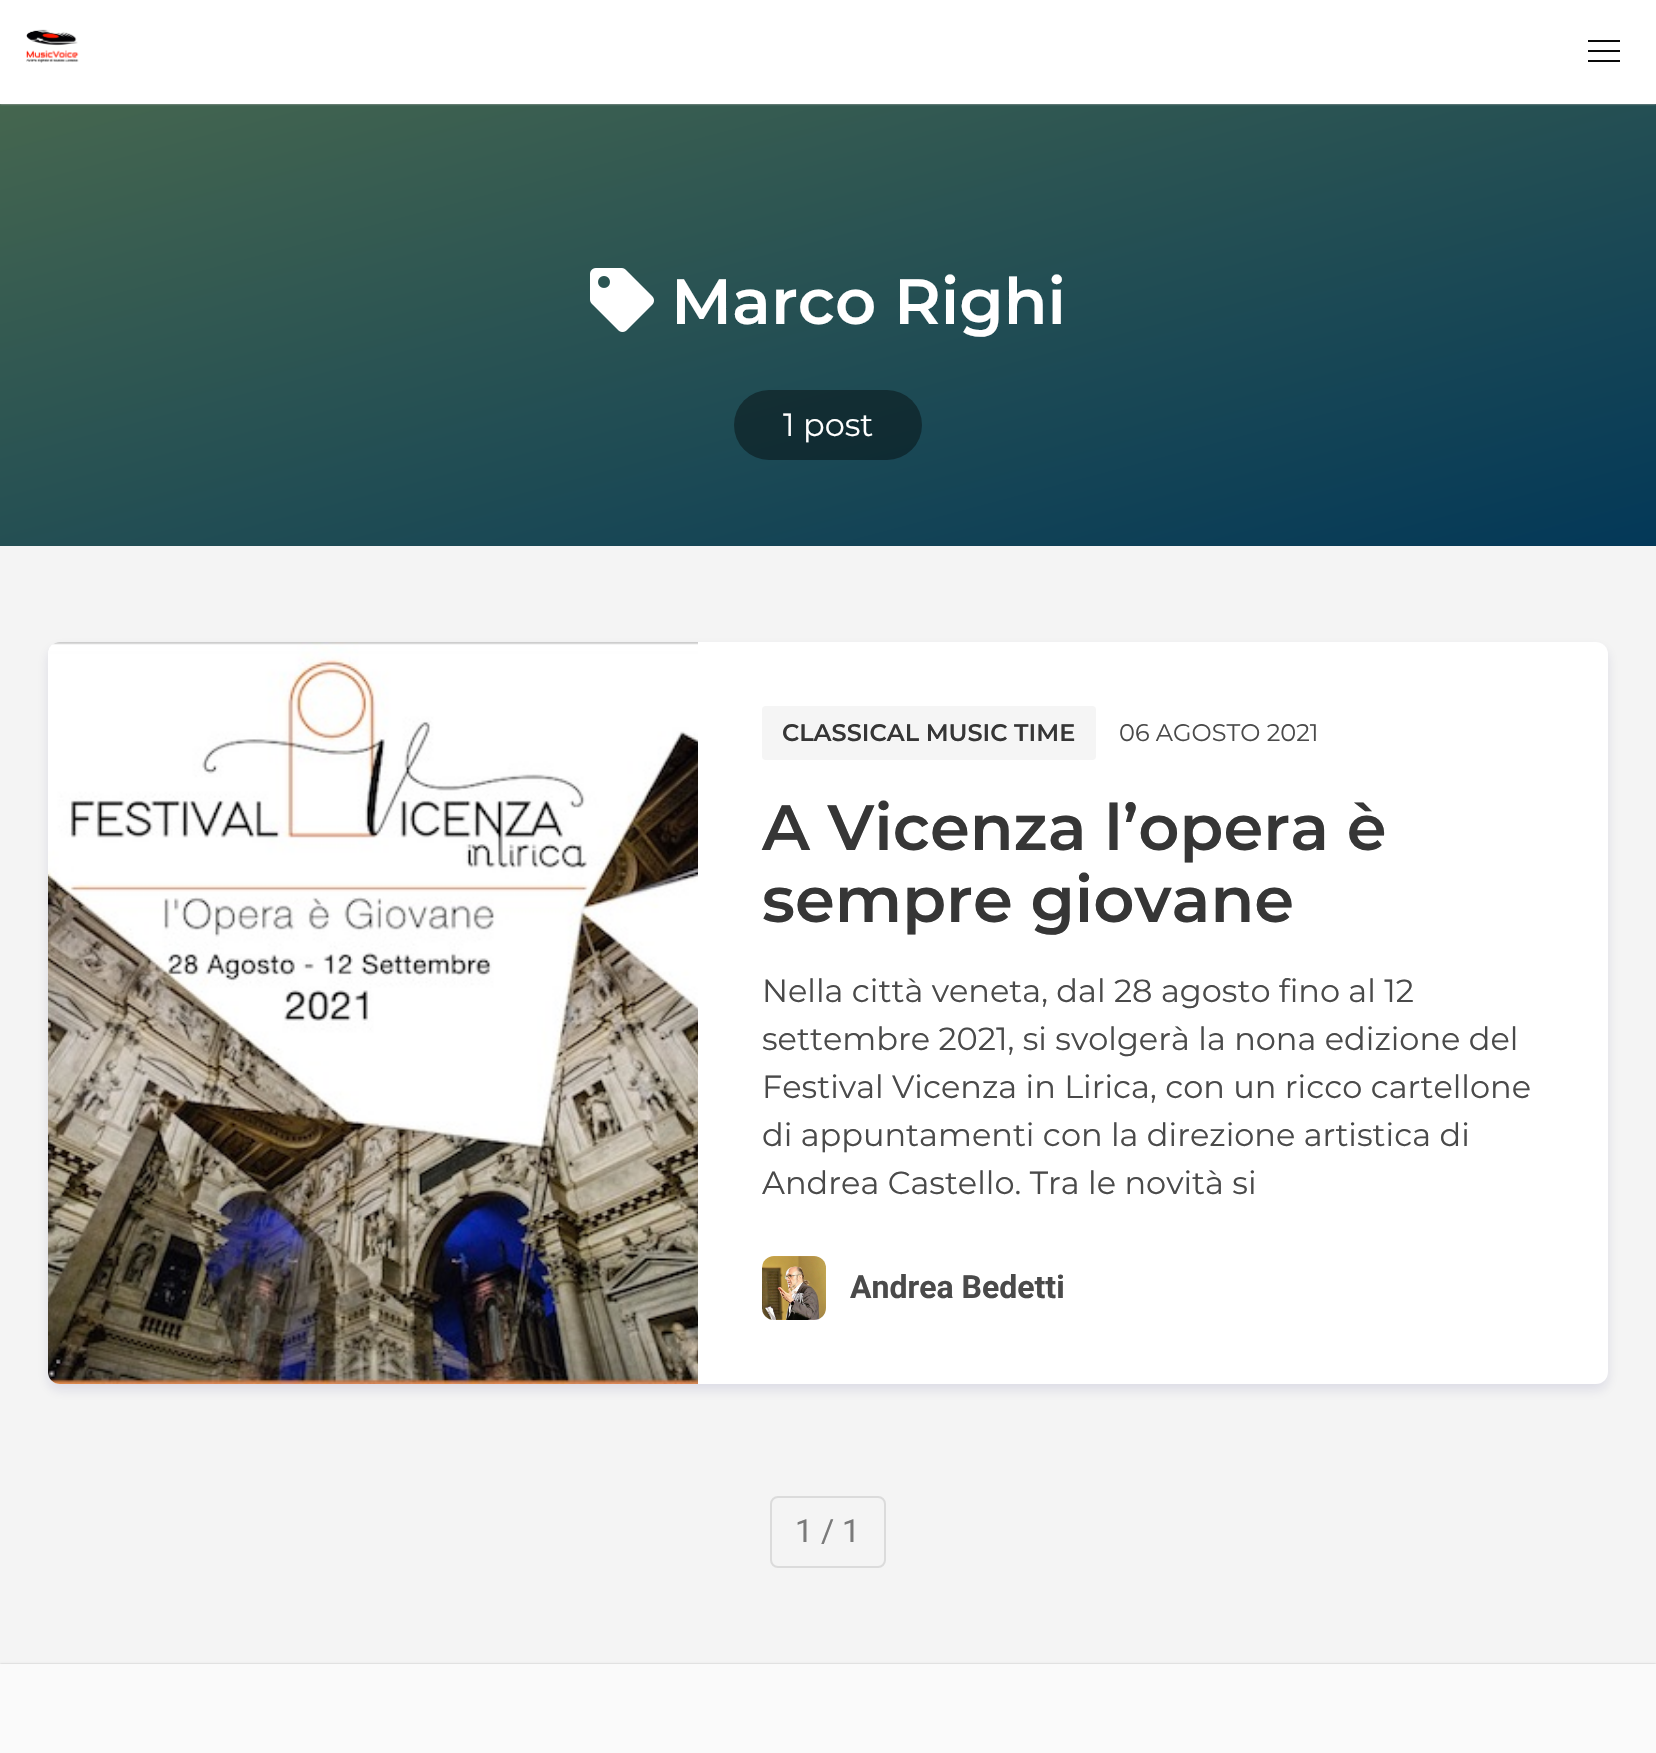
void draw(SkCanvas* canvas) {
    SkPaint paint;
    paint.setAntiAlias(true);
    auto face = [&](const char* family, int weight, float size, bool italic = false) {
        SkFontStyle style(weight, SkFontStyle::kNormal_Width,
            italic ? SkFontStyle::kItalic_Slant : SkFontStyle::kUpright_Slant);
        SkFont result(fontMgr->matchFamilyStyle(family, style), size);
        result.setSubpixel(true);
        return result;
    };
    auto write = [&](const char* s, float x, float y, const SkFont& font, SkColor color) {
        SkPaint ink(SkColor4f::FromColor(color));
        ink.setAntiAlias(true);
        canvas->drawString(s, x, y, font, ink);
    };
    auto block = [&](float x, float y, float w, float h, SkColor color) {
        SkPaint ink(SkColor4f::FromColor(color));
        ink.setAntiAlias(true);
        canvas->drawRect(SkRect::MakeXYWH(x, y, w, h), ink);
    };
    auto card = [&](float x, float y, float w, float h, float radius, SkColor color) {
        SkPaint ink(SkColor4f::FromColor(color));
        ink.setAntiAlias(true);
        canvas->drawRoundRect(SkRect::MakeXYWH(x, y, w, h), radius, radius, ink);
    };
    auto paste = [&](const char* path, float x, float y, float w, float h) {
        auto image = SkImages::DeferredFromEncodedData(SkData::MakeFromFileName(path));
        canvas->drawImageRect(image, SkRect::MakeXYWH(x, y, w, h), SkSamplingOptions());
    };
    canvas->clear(SK_ColorWHITE);
    block(0, 546, 1656, 1118, SkColorSetRGB(244, 244, 244));
    {
        const SkColor colors[] = {SkColorSetRGB(69, 102, 79), SkColorSetRGB(3, 56, 88)};
        const float stops[] = {0, 1};
        const SkPoint ends[] = {{718, -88}, {938, 738}};
        paint.setShader(SkGradientShader::MakeLinear(ends, colors, stops, 2, SkTileMode::kClamp));
        paint.setAlpha(255);
    }
    canvas->drawRect(SkRect::MakeXYWH(0, 104, 1656, 442), paint);
    canvas->save();
    canvas->clipRect(SkRect::MakeXYWH(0, 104, 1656, 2));
    paint.setShader(nullptr);
    paint.setColor(SkColorSetRGB(187, 187, 187));
    paint.setMaskFilter(SkMaskFilter::MakeBlur(kNormal_SkBlurStyle, 1));
    canvas->drawRect(SkRect::MakeXYWH(0, 0, 1656, 104), paint);
    paint.setMaskFilter(nullptr);
    canvas->restore();
    paste("pic1.png", 26, 29, 53, 34);
    block(1588, 40, 32, 2, SkColorSetRGB(10, 10, 10));
    block(1588, 50, 32, 2, SkColorSetRGB(10, 10, 10));
    block(1588, 60, 32, 2, SkColorSetRGB(10, 10, 10));
    paste("pic2.png", 590, 268, 64, 64);
    auto kFont1 = face("Montserrat", 600, 64);
    write("Marco Righi", 671, 324, kFont1, SK_ColorWHITE);
    card(734, 390, 188, 70, 35, SkColorSetARGB(102, 0, 0, 0));
    auto kFont2 = face("Montserrat", 400, 32);
    write("1 post", 783, 436, kFont2, SK_ColorWHITE);
    paint.setColor(SkColorSetARGB(26, 12, 12, 94));
    paint.setMaskFilter(SkMaskFilter::MakeBlur(kNormal_SkBlurStyle, 6));
    canvas->drawRoundRect(SkRect::MakeXYWH(48, 648, 1560, 742), 12, 12, paint);
    paint.setMaskFilter(nullptr);
    card(48, 642, 1560, 742, 12, SK_ColorWHITE);
    paste("pic3.png", 48, 642, 650, 742);
    card(762, 706, 334, 54, 4, SkColorSetRGB(245, 245, 245));
    auto kFont3 = face("Montserrat", 600, 24);
    write("CLASSICAL MUSIC TIME", 782, 741, kFont3, SkColorSetRGB(54, 54, 54));
    auto kFont4 = face("Montserrat", 400, 24);
    write("06 AGOSTO 2021", 1119, 741, kFont4, SkColorSetRGB(74, 74, 74));
    write("A Vicenza l’opera è", 762, 850, kFont1, SkColorSetRGB(54, 54, 54));
    write("sempre giovane", 762, 922, kFont1, SkColorSetRGB(54, 54, 54));
    write("Nella città veneta, dal 28 agosto fino al 12", 762, 1002, kFont2, SkColorSetRGB(74, 74, 74));
    write("settembre 2021, si svolgerà la nona edizione del", 762, 1050, kFont2, SkColorSetRGB(74, 74, 74));
    write("Festival Vicenza in Lirica, con un ricco cartellone", 762, 1098, kFont2, SkColorSetRGB(74, 74, 74));
    write("di appuntamenti con la direzione artistica di", 762, 1146, kFont2, SkColorSetRGB(74, 74, 74));
    write("Andrea Castello. Tra le novità si", 762, 1194, kFont2, SkColorSetRGB(74, 74, 74));
    paste("pic4.png", 762, 1256, 64, 64);
    auto kFont5 = face("Roboto", 700, 32);
    write("Andrea Bedetti", 850, 1298, kFont5, SkColorSetRGB(74, 74, 74));
    paint.setStyle(SkPaint::kStroke_Style);
    paint.setStrokeWidth(2);
    paint.setColor(SkColorSetRGB(219, 219, 219));
    canvas->drawRoundRect(SkRect::MakeXYWH(771, 1497, 114, 70), 7, 7, paint);
    auto kFont6 = face("Roboto", 400, 32);
    write("1 / 1", 795, 1542, kFont6, SkColorSetRGB(122, 122, 122));
    paint.setStyle(SkPaint::kFill_Style);
    paint.setColor(SkColorSetRGB(187, 187, 187));
    paint.setMaskFilter(SkMaskFilter::MakeBlur(kNormal_SkBlurStyle, 1));
    canvas->drawRect(SkRect::MakeXYWH(0, 1664, 1656, 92), paint);
    paint.setMaskFilter(nullptr);
    block(0, 1664, 1656, 89, SkColorSetRGB(250, 250, 250));
}
